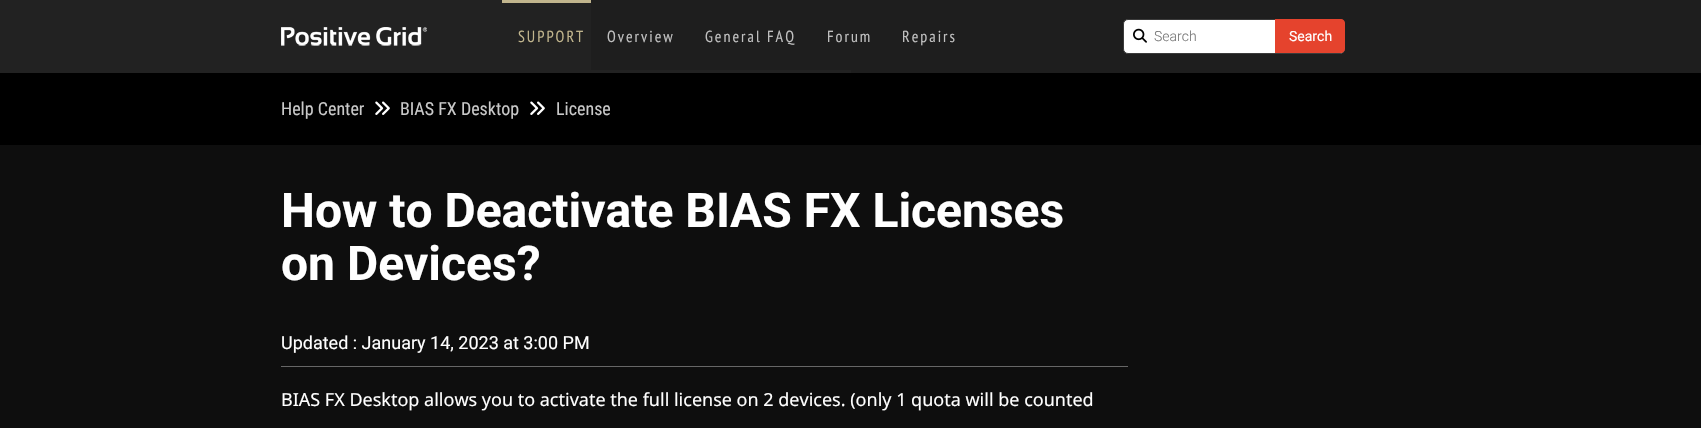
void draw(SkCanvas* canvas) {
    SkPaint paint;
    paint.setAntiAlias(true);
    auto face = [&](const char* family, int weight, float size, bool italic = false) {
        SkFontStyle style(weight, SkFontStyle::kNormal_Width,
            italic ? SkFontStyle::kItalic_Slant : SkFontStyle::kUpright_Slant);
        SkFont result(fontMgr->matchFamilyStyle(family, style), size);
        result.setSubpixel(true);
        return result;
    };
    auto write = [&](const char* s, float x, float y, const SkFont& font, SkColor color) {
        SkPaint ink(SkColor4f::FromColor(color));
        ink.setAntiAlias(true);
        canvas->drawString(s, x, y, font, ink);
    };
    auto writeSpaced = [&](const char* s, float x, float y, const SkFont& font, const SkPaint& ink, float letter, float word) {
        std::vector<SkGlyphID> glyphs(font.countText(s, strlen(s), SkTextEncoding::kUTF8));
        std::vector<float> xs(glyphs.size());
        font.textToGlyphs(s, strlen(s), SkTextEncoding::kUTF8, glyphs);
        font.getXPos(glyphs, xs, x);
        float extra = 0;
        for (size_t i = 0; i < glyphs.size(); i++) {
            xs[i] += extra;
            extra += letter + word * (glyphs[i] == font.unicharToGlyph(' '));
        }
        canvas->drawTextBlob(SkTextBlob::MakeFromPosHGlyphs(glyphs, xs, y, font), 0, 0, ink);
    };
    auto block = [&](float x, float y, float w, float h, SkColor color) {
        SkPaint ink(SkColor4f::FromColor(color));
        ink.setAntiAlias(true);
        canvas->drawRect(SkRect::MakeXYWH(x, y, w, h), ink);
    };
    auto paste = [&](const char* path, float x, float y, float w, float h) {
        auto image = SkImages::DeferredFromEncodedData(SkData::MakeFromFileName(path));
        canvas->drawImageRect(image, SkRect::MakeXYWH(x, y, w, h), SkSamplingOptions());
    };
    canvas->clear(SkColorSetRGB(14, 14, 14));
    block(0, 0, 851, 73, SkColorSetRGB(34, 34, 34));
    block(851, 0, 850, 73, SkColorSetRGB(30, 30, 30));
    paste("pic1.png", 281, 27, 146, 19);
    block(502, 0, 89, 3, SkColorSetRGB(193, 181, 141));
    auto kFont1 = face("PT Sans Narrow", 400, 16);
    paint.setColor(SkColorSetRGB(193, 181, 141));
    writeSpaced("SUPPORT", 518, 42, kFont1, paint, 2, 0);
    block(591, 0, 260, 70, SkColorSetRGB(30, 30, 30));
    paint.setColor(SkColorSetRGB(192, 192, 192));
    writeSpaced("Overview", 607, 42, kFont1, paint, 2, 0);
    writeSpaced("General FAQ", 705, 42, kFont1, paint, 2, 0);
    writeSpaced("Forum", 827, 42, kFont1, paint, 2, 0);
    writeSpaced("Repairs", 902, 42, kFont1, paint, 2, 0);
    paint.setColor(SK_ColorWHITE);
    canvas->drawRoundRect(SkRect::MakeXYWH(1123.5f, 19.5f, 221, 34), 4.5f, 4.5f, paint);
    paint.setStyle(SkPaint::kStroke_Style);
    paint.setStrokeWidth(1);
    paint.setColor(SkColorSetRGB(59, 59, 59));
    canvas->drawRoundRect(SkRect::MakeXYWH(1123.5f, 19.5f, 221, 34), 4.5f, 4.5f, paint);
    paste("pic2.png", 1133, 28, 14, 15);
    auto kFont2 = face("Roboto", 300, 14);
    write("Search", 1154, 41, kFont2, SkColorSetRGB(117, 117, 117));
    paint.setStyle(SkPaint::kFill_Style);
    paint.setColor(SkColorSetRGB(229, 67, 45));
    canvas->drawPath(SkPathBuilder().moveTo(1275, 19).lineTo(1341, 19).cubicTo(1343, 19, 1345, 21, 1345, 23).lineTo(1345, 49).cubicTo(1345, 51, 1343, 53, 1341, 53).lineTo(1275, 53).close().detach(), paint);
    auto kFont3 = face("Roboto", 400, 14);
    write("Search", 1289, 41, kFont3, SK_ColorWHITE);
    block(0, 73, 1701, 72, SK_ColorBLACK);
    auto kFont4 = face("Roboto Condensed", 400, 18);
    write("Help Center", 281, 115, kFont4, SkColorSetRGB(201, 201, 201));
    paste("pic3.png", 375, 101, 15, 14);
    write("BIAS FX Desktop", 400, 115, kFont4, SkColorSetRGB(201, 201, 201));
    paste("pic3.png", 530, 101, 15, 14);
    write("License", 556, 115, kFont4, SkColorSetRGB(201, 201, 201));
    auto kFont5 = face("Roboto", 700, 48);
    write("How to Deactivate BIAS FX Licenses", 281, 227, kFont5, SK_ColorWHITE);
    write("on Devices?", 281, 280, kFont5, SK_ColorWHITE);
    block(281, 366, 847, 1, SkColorSetRGB(102, 102, 102));
    auto kFont6 = face("Roboto", 400, 18);
    write("Updated : January 14, 2023 at 3:00 PM", 281, 349, kFont6, SK_ColorWHITE);
    auto kFont7 = face("Noto Sans", 400, 18);
    write("BIAS FX Desktop allows you to activate the full license on 2 devices. (only 1 quota will be counted", 281, 406, kFont7, SK_ColorWHITE);
}
